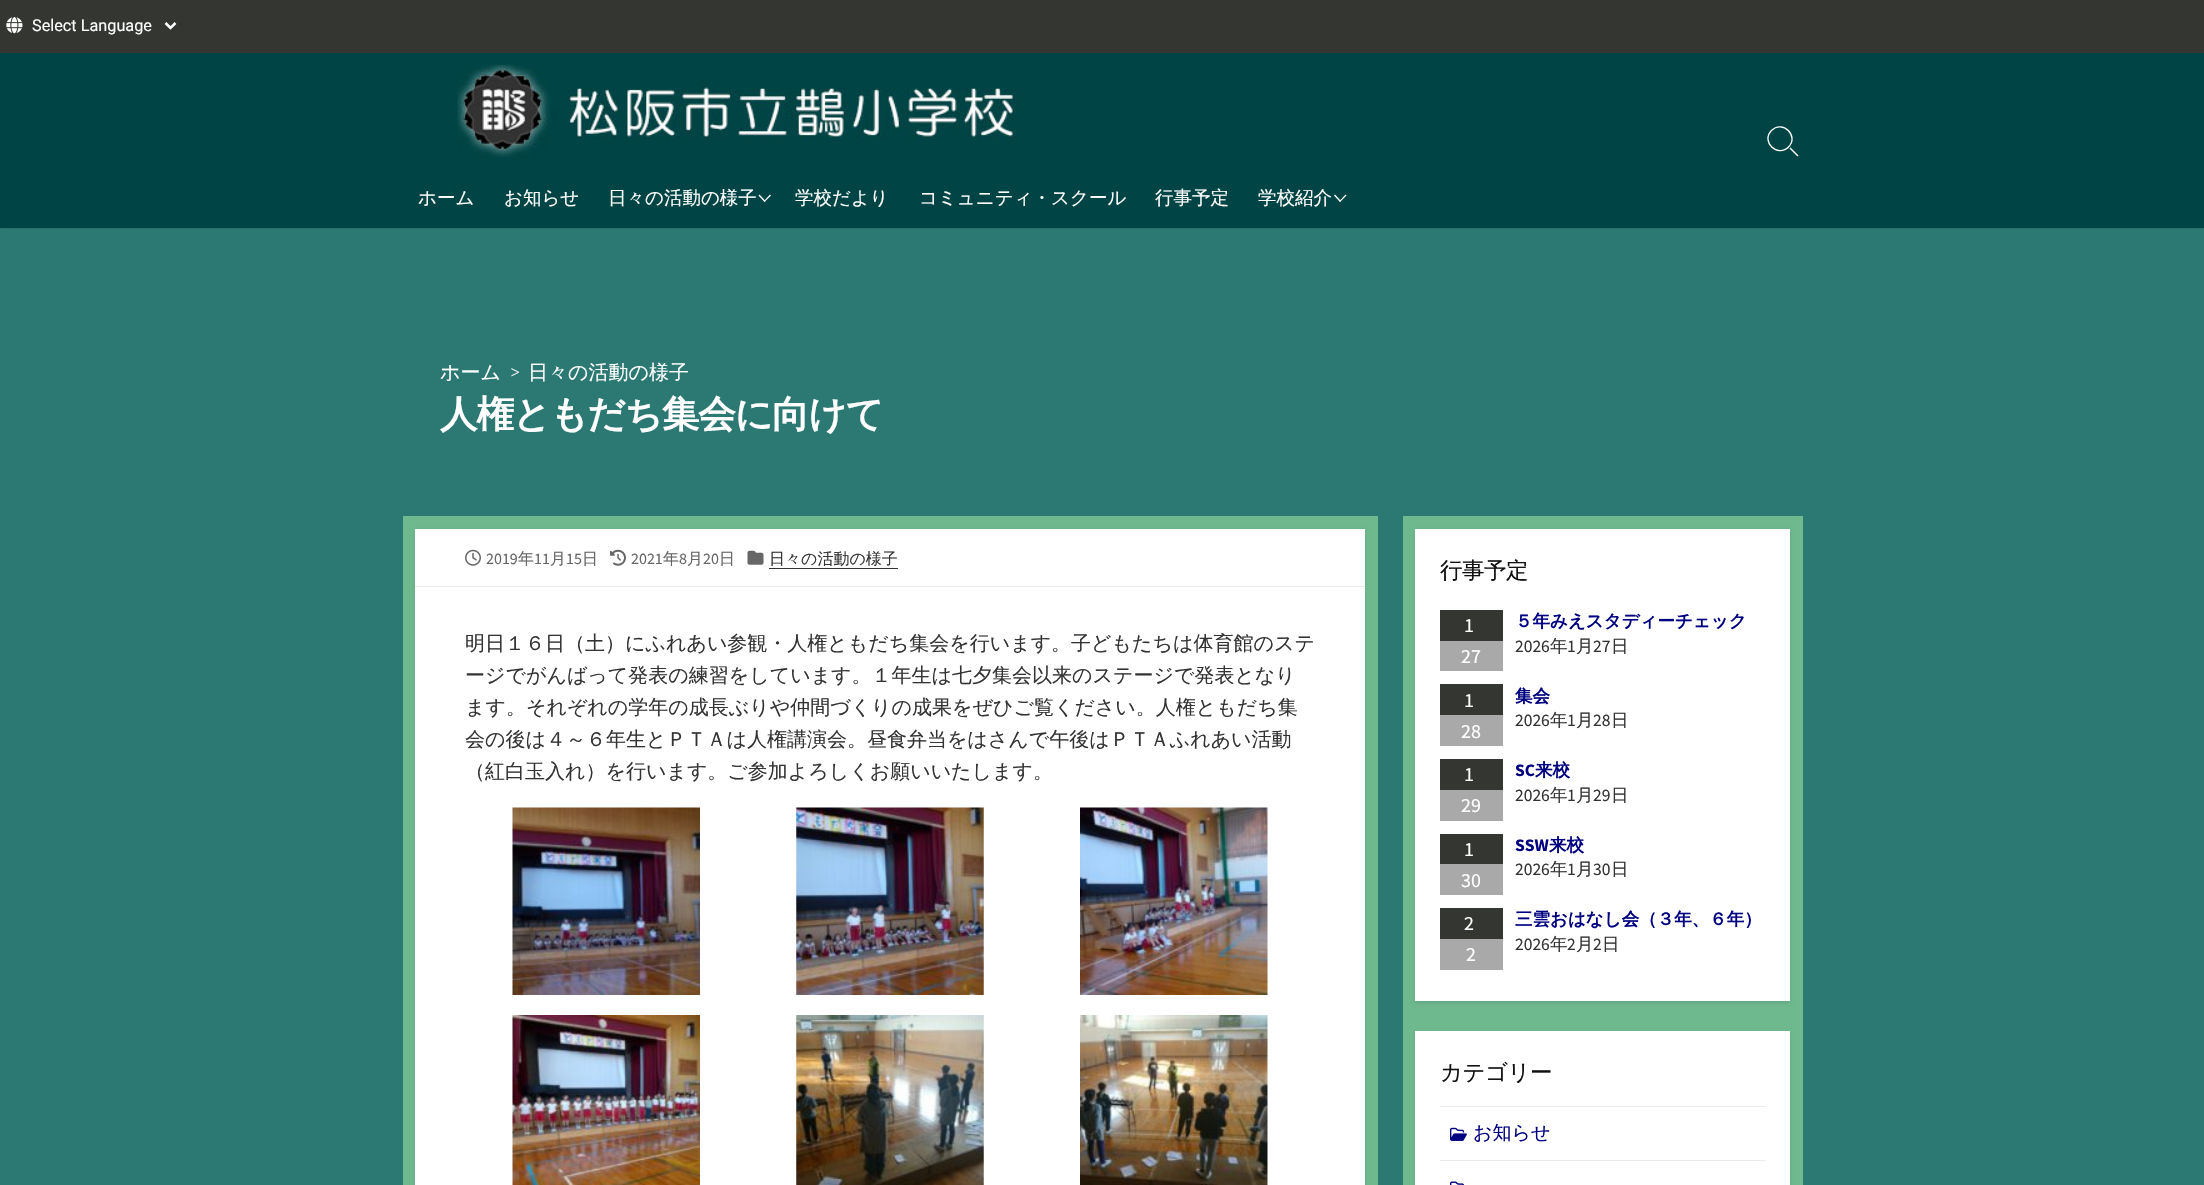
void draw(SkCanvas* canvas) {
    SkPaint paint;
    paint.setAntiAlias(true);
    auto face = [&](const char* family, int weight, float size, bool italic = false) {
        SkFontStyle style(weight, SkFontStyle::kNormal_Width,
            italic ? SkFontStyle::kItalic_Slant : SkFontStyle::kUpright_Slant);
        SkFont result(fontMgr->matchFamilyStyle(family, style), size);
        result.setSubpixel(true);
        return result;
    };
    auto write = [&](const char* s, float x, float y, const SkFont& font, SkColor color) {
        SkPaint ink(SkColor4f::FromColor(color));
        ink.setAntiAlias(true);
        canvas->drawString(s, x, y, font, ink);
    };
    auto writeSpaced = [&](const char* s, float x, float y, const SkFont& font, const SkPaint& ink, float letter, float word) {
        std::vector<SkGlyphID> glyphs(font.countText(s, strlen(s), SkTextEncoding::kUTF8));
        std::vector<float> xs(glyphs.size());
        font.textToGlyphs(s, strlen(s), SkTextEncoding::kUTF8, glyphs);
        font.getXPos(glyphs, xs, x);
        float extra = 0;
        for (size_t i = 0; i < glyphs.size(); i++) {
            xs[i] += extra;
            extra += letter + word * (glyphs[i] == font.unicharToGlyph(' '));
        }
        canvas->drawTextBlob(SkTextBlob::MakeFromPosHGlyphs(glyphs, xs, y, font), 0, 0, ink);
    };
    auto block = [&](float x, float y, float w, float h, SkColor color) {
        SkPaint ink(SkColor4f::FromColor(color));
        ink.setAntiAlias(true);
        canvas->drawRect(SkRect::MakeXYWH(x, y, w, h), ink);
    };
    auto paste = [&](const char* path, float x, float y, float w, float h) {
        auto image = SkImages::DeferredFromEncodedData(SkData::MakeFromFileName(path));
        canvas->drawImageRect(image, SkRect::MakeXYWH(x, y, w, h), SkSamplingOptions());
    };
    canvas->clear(SkColorSetRGB(44, 120, 115));
    paint.setColor(SkColorSetARGB(102, 0, 0, 0));
    paint.setMaskFilter(SkMaskFilter::MakeBlur(kNormal_SkBlurStyle, 0.5f));
    canvas->drawRect(SkRect::MakeXYWH(1, 53, 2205, 175), paint);
    paint.setMaskFilter(nullptr);
    block(0, 0, 2204, 53, SkColorSetRGB(51, 54, 49));
    paste("pic1.png", 6, 17, 17, 17);
    paint.setStyle(SkPaint::kStroke_Style);
    paint.setStrokeWidth(2.5f);
    paint.setColor(SK_ColorWHITE);
    canvas->drawPath(SkPathBuilder().moveTo(165.5f, 23).lineTo(170.5f, 28).lineTo(175.5f, 23).detach(), paint);
    auto kFont1 = face("Roboto", 400, 16.25f);
    write("Select Language", 32, 31, kFont1, SK_ColorWHITE);
    block(0, 53, 2204, 175, SkColorSetRGB(0, 68, 69));
    paste("pic2.png", 457, 64, 561, 94);
    paint.setStrokeWidth(1.3f);
    canvas->drawPath(SkPathBuilder().moveTo(1771.5f, 130.5f).cubicTo(1782.5f, 119.5f, 1799.5f, 136, 1788.5f, 147).cubicTo(1777.5f, 158, 1760.5f, 141.5f, 1771.5f, 130.5f).close().detach(), paint);
    paint.setStyle(SkPaint::kFill_Style);
    canvas->drawPath(SkPathBuilder().moveTo(1789.5f, 148.5f).lineTo(1790.5f, 147.5f).lineTo(1798.5f, 155.5f).lineTo(1797.5f, 156.5f).close().detach(), paint);
    auto kFont2 = face("WenQuanYi Zen Hei", 500, 18.5f);
    write("ホーム", 418, 204, kFont2, SK_ColorWHITE);
    write("お知らせ", 504, 204, kFont2, SK_ColorWHITE);
    write("日々の活動の様子", 608, 204, kFont2, SK_ColorWHITE);
    canvas->drawPath(SkPathBuilder().moveTo(770, 194.5f).lineTo(771, 195.5f).lineTo(764.5f, 202).lineTo(764, 201).close().detach(), paint);
    canvas->drawPath(SkPathBuilder().moveTo(759.5f, 194.5f).lineTo(765.5f, 201).lineTo(764.5f, 202).lineTo(758.5f, 195.5f).close().detach(), paint);
    write("学校だより", 795, 204, kFont2, SK_ColorWHITE);
    write("コミュニティ・スクール", 919, 204, kFont2, SK_ColorWHITE);
    write("行事予定", 1155, 204, kFont2, SK_ColorWHITE);
    write("学校紹介", 1258, 204, kFont2, SK_ColorWHITE);
    canvas->drawPath(SkPathBuilder().moveTo(1345.5f, 194.5f).lineTo(1346.5f, 195.5f).lineTo(1340, 202).lineTo(1339.5f, 201).close().detach(), paint);
    canvas->drawPath(SkPathBuilder().moveTo(1335, 194.5f).lineTo(1341, 201).lineTo(1340, 202).lineTo(1334, 195.5f).close().detach(), paint);
    auto kFont3 = face("WenQuanYi Zen Hei", 500, 20);
    write("ホーム", 440, 379, kFont3, SK_ColorWHITE);
    auto kFont4 = face("Lato", 300, 20);
    write(">", 509, 379, kFont4, SK_ColorWHITE);
    write("日々の活動の様子", 528, 379, kFont3, SK_ColorWHITE);
    auto kFont5 = face("WenQuanYi Zen Hei", 700, 37.5f);
    writeSpaced("人権ともだち集会に向けて", 440, 427, kFont5, paint, -1.1f, 0);
    block(403, 516, 975, 669, SkColorSetRGB(111, 185, 143));
    paint.setColor(SkColorSetARGB(26, 0, 0, 0));
    paint.setMaskFilter(SkMaskFilter::MakeBlur(kNormal_SkBlurStyle, 2));
    canvas->drawRect(SkRect::MakeXYWH(415, 530, 950, 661), paint);
    paint.setMaskFilter(nullptr);
    block(415, 529, 950, 656, SK_ColorWHITE);
    block(415, 586, 950, 1, SkColorSetRGB(234, 234, 234));
    paste("pic3.png", 465, 549, 16, 17);
    auto kFont6 = face("Source Sans Pro", 400, 16);
    write("2019", 486, 564, kFont6, SkColorSetRGB(102, 102, 102));
    auto kFont7 = face("WenQuanYi Zen Hei", 500, 16);
    write("年", 518, 564, kFont7, SkColorSetRGB(102, 102, 102));
    write("11", 534, 564, kFont6, SkColorSetRGB(102, 102, 102));
    write("月", 550, 564, kFont7, SkColorSetRGB(102, 102, 102));
    write("15", 566, 564, kFont6, SkColorSetRGB(102, 102, 102));
    write("日", 582, 564, kFont7, SkColorSetRGB(102, 102, 102));
    paste("pic4.png", 610, 549, 16, 17);
    write("2021", 631, 564, kFont6, SkColorSetRGB(102, 102, 102));
    write("年", 663, 564, kFont7, SkColorSetRGB(102, 102, 102));
    write("8", 679, 564, kFont6, SkColorSetRGB(102, 102, 102));
    write("月", 687, 564, kFont7, SkColorSetRGB(102, 102, 102));
    write("20", 703, 564, kFont6, SkColorSetRGB(102, 102, 102));
    write("日", 719, 564, kFont7, SkColorSetRGB(102, 102, 102));
    paste("pic5.png", 747, 550, 17, 15);
    write("日々の活動の様子", 769, 564, kFont7, SkColorSetRGB(51, 51, 51));
    paint.setColor(SkColorSetRGB(51, 51, 51));
    canvas->drawPath(SkPathBuilder().moveTo(769, 568).lineTo(769, 569).lineTo(898, 569).lineTo(898, 549).lineTo(898, 568).close().detach(), paint);
    write("明日１６日（土）にふれあい参観・人権ともだち集会を行います。子どもたちは体育館のステ", 465, 650, kFont3, SkColorSetRGB(51, 51, 51));
    write("ージでがんばって発表の練習をしています。１年生は七夕集会以来のステージで発表となり", 465, 682, kFont3, SkColorSetRGB(51, 51, 51));
    write("ます。それぞれの学年の成長ぶりや仲間づくりの成果をぜひご覧ください。人権ともだち集", 465, 714, kFont3, SkColorSetRGB(51, 51, 51));
    write("会の後は４～６年生とＰＴＡは人権講演会。昼食弁当をはさんで午後はＰＴＡふれあい活動", 465, 746, kFont3, SkColorSetRGB(51, 51, 51));
    write("（紅白玉入れ）を行います。ご参加よろしくお願いいたします。", 465, 778, kFont3, SkColorSetRGB(51, 51, 51));
    paste("pic6.png", 512, 807, 188, 188);
    paste("pic7.png", 796, 807, 188, 188);
    paste("pic8.png", 1080, 807, 188, 188);
    paste("pic9.png", 512, 1015, 188, 170);
    paste("pic10.png", 796, 1015, 188, 170);
    paste("pic11.png", 1080, 1015, 188, 170);
    block(1403, 516, 400, 669, SkColorSetRGB(111, 185, 143));
    paint.setColor(SkColorSetARGB(26, 0, 0, 0));
    paint.setMaskFilter(SkMaskFilter::MakeBlur(kNormal_SkBlurStyle, 2));
    canvas->drawRect(SkRect::MakeXYWH(1415, 530, 375, 473), paint);
    paint.setMaskFilter(nullptr);
    block(1415, 529, 375, 472, SK_ColorWHITE);
    auto kFont8 = face("WenQuanYi Zen Hei", 500, 22.5f);
    paint.setColor(SkColorSetRGB(17, 17, 17));
    writeSpaced("行事予定", 1440, 578, kFont8, paint, -0.5f, 0);
    block(1440, 610, 63, 31, SkColorSetRGB(51, 54, 49));
    auto kFont9 = face("Source Sans Pro", 400, 20);
    paint.setColor(SK_ColorWHITE);
    writeSpaced("1", 1464, 632, kFont9, paint, 4, 0);
    block(1440, 641, 63, 30, SkColorSetRGB(169, 169, 169));
    write("27", 1461, 663, kFont9, SK_ColorWHITE);
    auto kFont10 = face("WenQuanYi Zen Hei", 700, 17.5f);
    write("５年みえスタディーチェック", 1515, 627, kFont10, SkColorSetRGB(0, 0, 128));
    auto kFont11 = face("Source Sans Pro", 400, 17.5f);
    write("2026", 1515, 652, kFont11, SkColorSetRGB(51, 51, 51));
    auto kFont12 = face("WenQuanYi Zen Hei", 500, 17.5f);
    write("年", 1550, 652, kFont12, SkColorSetRGB(51, 51, 51));
    write("1", 1567, 652, kFont11, SkColorSetRGB(51, 51, 51));
    write("月", 1576, 652, kFont12, SkColorSetRGB(51, 51, 51));
    write("27", 1593, 652, kFont11, SkColorSetRGB(51, 51, 51));
    write("日", 1611, 652, kFont12, SkColorSetRGB(51, 51, 51));
    block(1440, 684, 63, 31, SkColorSetRGB(51, 54, 49));
    writeSpaced("1", 1464, 707, kFont9, paint, 4, 0);
    block(1440, 715, 63, 31, SkColorSetRGB(169, 169, 169));
    write("28", 1461, 738, kFont9, SK_ColorWHITE);
    write("集会", 1515, 702, kFont10, SkColorSetRGB(0, 0, 128));
    write("2026", 1515, 726, kFont11, SkColorSetRGB(51, 51, 51));
    write("年", 1550, 726, kFont12, SkColorSetRGB(51, 51, 51));
    write("月", 1576, 726, kFont12, SkColorSetRGB(51, 51, 51));
    write("日", 1611, 726, kFont12, SkColorSetRGB(51, 51, 51));
    write("1", 1567, 726, kFont11, SkColorSetRGB(51, 51, 51));
    write("28", 1593, 726, kFont11, SkColorSetRGB(51, 51, 51));
    block(1440, 759, 63, 31, SkColorSetRGB(51, 54, 49));
    writeSpaced("1", 1464, 781, kFont9, paint, 4, 0);
    block(1440, 790, 63, 31, SkColorSetRGB(169, 169, 169));
    write("29", 1461, 812, kFont9, SK_ColorWHITE);
    auto kFont13 = face("Source Sans Pro", 700, 17.5f);
    write("SC", 1515, 776, kFont13, SkColorSetRGB(0, 0, 128));
    write("来校", 1535, 776, kFont10, SkColorSetRGB(0, 0, 128));
    write("2026", 1515, 801, kFont11, SkColorSetRGB(51, 51, 51));
    write("年", 1550, 801, kFont12, SkColorSetRGB(51, 51, 51));
    write("1", 1567, 801, kFont11, SkColorSetRGB(51, 51, 51));
    write("月", 1576, 801, kFont12, SkColorSetRGB(51, 51, 51));
    write("29", 1593, 801, kFont11, SkColorSetRGB(51, 51, 51));
    write("日", 1611, 801, kFont12, SkColorSetRGB(51, 51, 51));
    block(1440, 834, 63, 30, SkColorSetRGB(51, 54, 49));
    writeSpaced("1", 1464, 856, kFont9, paint, 4, 0);
    block(1440, 864, 63, 31, SkColorSetRGB(169, 169, 169));
    write("30", 1461, 887, kFont9, SK_ColorWHITE);
    write("SSW", 1515, 851, kFont13, SkColorSetRGB(0, 0, 128));
    write("来校", 1549, 851, kFont10, SkColorSetRGB(0, 0, 128));
    write("2026", 1515, 875, kFont11, SkColorSetRGB(51, 51, 51));
    write("年", 1550, 875, kFont12, SkColorSetRGB(51, 51, 51));
    write("1", 1567, 875, kFont11, SkColorSetRGB(51, 51, 51));
    write("月", 1576, 875, kFont12, SkColorSetRGB(51, 51, 51));
    write("30", 1593, 875, kFont11, SkColorSetRGB(51, 51, 51));
    write("日", 1611, 875, kFont12, SkColorSetRGB(51, 51, 51));
    block(1440, 908, 63, 31, SkColorSetRGB(51, 54, 49));
    writeSpaced("2", 1464, 930, kFont9, paint, 4, 0);
    block(1440, 939, 63, 31, SkColorSetRGB(169, 169, 169));
    write("2", 1466, 961, kFont9, SK_ColorWHITE);
    write("三雲おはなし会（３年、６年）", 1515, 925, kFont10, SkColorSetRGB(0, 0, 128));
    write("2026", 1515, 950, kFont11, SkColorSetRGB(51, 51, 51));
    write("年", 1550, 950, kFont12, SkColorSetRGB(51, 51, 51));
    write("2", 1567, 950, kFont11, SkColorSetRGB(51, 51, 51));
    write("月", 1576, 950, kFont12, SkColorSetRGB(51, 51, 51));
    write("2", 1593, 950, kFont11, SkColorSetRGB(51, 51, 51));
    write("日", 1602, 950, kFont12, SkColorSetRGB(51, 51, 51));
    paint.setColor(SkColorSetARGB(26, 0, 0, 0));
    paint.setMaskFilter(SkMaskFilter::MakeBlur(kNormal_SkBlurStyle, 2));
    canvas->drawRect(SkRect::MakeXYWH(1415, 1033, 375, 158), paint);
    paint.setMaskFilter(nullptr);
    block(1415, 1031, 375, 154, SK_ColorWHITE);
    paint.setColor(SkColorSetRGB(17, 17, 17));
    writeSpaced("カテゴリー", 1440, 1080, kFont8, paint, -0.5f, 0);
    block(1440, 1106, 325, 1, SkColorSetRGB(234, 234, 234));
    block(1440, 1160, 325, 1, SkColorSetRGB(234, 234, 234));
    paste("pic12.png", 1450, 1127, 17, 14);
    auto kFont14 = face("WenQuanYi Zen Hei", 500, 19);
    write("お知らせ", 1473, 1139, kFont14, SkColorSetRGB(0, 0, 128));
    paste("pic13.png", 1450, 1181, 14, 4);
}
